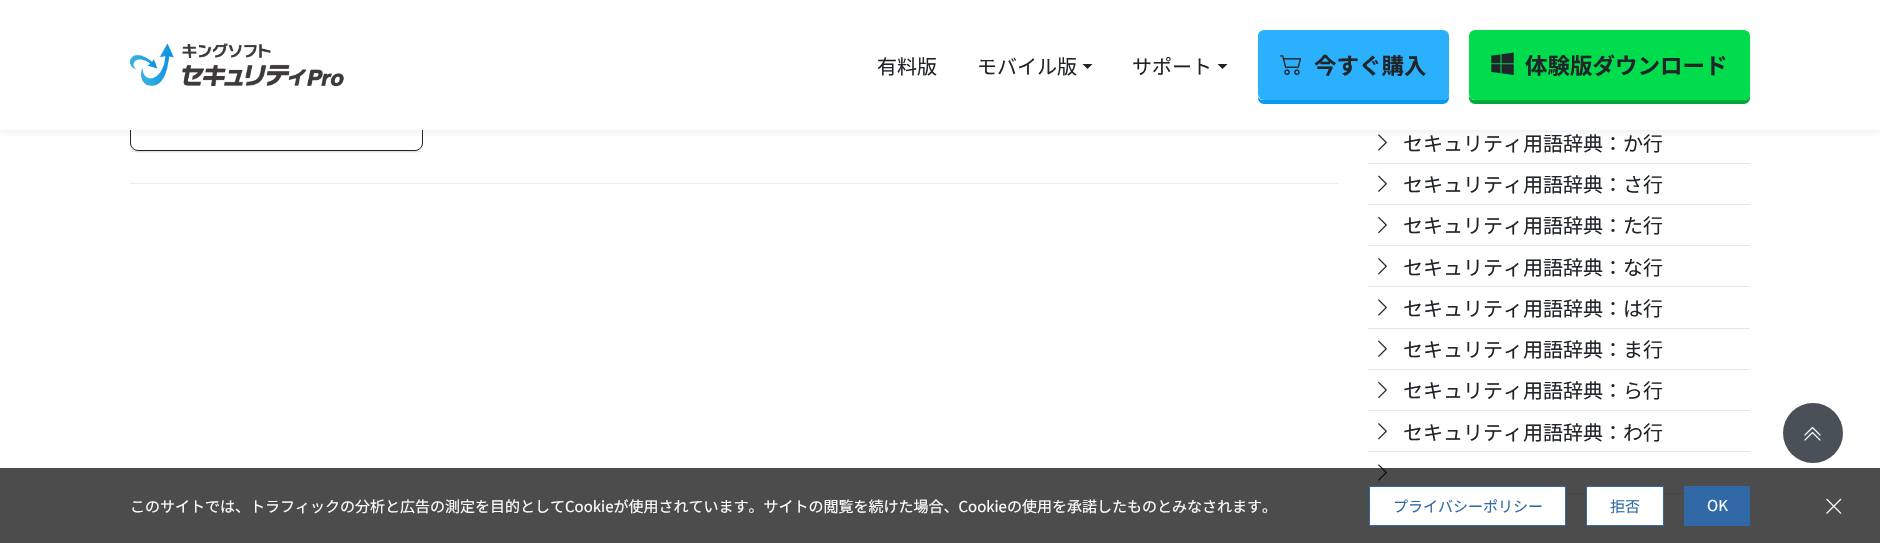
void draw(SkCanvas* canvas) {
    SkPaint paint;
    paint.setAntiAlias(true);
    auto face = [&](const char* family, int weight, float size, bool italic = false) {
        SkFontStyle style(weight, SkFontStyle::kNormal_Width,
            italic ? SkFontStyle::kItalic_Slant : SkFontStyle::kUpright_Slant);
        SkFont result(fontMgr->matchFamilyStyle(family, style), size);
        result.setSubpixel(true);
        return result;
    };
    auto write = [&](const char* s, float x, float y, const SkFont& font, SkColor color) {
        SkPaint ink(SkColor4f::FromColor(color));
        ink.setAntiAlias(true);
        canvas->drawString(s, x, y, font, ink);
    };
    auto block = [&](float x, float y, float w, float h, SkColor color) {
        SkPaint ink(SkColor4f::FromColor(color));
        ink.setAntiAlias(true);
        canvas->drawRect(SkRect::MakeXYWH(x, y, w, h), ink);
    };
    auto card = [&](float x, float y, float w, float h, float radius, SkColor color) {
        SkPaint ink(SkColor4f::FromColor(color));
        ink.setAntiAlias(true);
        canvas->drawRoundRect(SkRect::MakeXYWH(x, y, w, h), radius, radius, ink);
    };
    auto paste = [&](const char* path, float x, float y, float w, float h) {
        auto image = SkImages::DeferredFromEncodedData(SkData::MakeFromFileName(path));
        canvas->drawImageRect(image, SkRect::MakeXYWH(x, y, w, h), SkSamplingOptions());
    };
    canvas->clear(SK_ColorWHITE);
    block(130, 151, 293, 1, SkColorSetRGB(235, 235, 235));
    canvas->save();
    canvas->clipPath(SkPathBuilder(SkPathFillType::kEvenOdd).moveTo(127, 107).lineTo(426, 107).lineTo(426, 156).lineTo(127, 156).close().moveTo(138, 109).lineTo(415, 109).cubicTo(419.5f, 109, 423, 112.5f, 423, 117).lineTo(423, 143).cubicTo(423, 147.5f, 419.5f, 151, 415, 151).lineTo(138, 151).cubicTo(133.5f, 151, 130, 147.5f, 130, 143).lineTo(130, 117).cubicTo(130, 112.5f, 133.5f, 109, 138, 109).close().detach(), true);
    paint.setColor(SkColorSetARGB(18, 51, 51, 51));
    paint.setMaskFilter(SkMaskFilter::MakeBlur(kNormal_SkBlurStyle, 0.5f));
    canvas->drawRoundRect(SkRect::MakeXYWH(130, 110, 293, 43), 8, 8, paint);
    paint.setMaskFilter(nullptr);
    canvas->restore();
    paint.setStyle(SkPaint::kStroke_Style);
    paint.setStrokeWidth(1);
    paint.setColor(SkColorSetRGB(33, 37, 41));
    canvas->drawRoundRect(SkRect::MakeXYWH(130.5f, 109.5f, 292, 41), 7.5f, 7.5f, paint);
    paste("pic4.png", 1378, 134, 9, 17);
    paint.setStyle(SkPaint::kFill_Style);
    paint.setColor(SkColorSetARGB(18, 51, 51, 51));
    paint.setMaskFilter(SkMaskFilter::MakeBlur(kNormal_SkBlurStyle, 2.5f));
    canvas->drawRect(SkRect::MakeXYWH(0, 3, 1880, 130), paint);
    paint.setMaskFilter(nullptr);
    block(0, 1, 1880, 129, SK_ColorWHITE);
    paste("pic1.png", 130, 43, 214, 43);
    auto kFont1 = face("Noto Sans JP", 400, 20);
    write("有料版", 877, 74, kFont1, SkColorSetRGB(33, 37, 41));
    write("モバイル版", 977, 74, kFont1, SkColorSetRGB(33, 37, 41));
    paint.setColor(SkColorSetRGB(33, 37, 41));
    canvas->drawPath(SkPathBuilder().moveTo(1082.5f, 64).lineTo(1092.5f, 64).lineTo(1087.5f, 69).close().detach(), paint);
    write("サポート", 1132, 74, kFont1, SkColorSetRGB(33, 37, 41));
    canvas->drawPath(SkPathBuilder().moveTo(1217.5f, 64).lineTo(1227.5f, 64).lineTo(1222.5f, 69).close().detach(), paint);
    paint.setColor(SkColorSetRGB(3, 154, 240));
    canvas->drawPath(SkPathBuilder().moveTo(1258, 97).lineTo(1258, 98).cubicTo(1258, 101, 1261, 104, 1264, 104).lineTo(1443, 104).cubicTo(1446, 104, 1449, 101, 1449, 98).lineTo(1449, 38).lineTo(1449, 94).cubicTo(1449, 97, 1446, 100, 1443, 100).lineTo(1263, 100).cubicTo(1261, 100, 1259, 99, 1258, 97).close().detach(), paint);
    card(1258, 30, 191, 70, 6, SkColorSetRGB(42, 176, 252));
    paste("pic2.png", 1280, 55, 22, 20);
    auto kFont2 = face("Noto Sans JP", 700, 22.5f);
    write("今すぐ購入", 1314, 74, kFont2, SkColorSetRGB(33, 37, 41));
    paint.setColor(SkColorSetRGB(0, 169, 58));
    canvas->drawPath(SkPathBuilder().moveTo(1469, 96).lineTo(1469, 98).cubicTo(1469, 101, 1472, 104, 1475, 104).lineTo(1744, 104).cubicTo(1747, 104, 1750, 101, 1750, 98).lineTo(1750, 94).cubicTo(1750, 97, 1747, 100, 1744, 100).lineTo(1474, 100).cubicTo(1472, 100, 1470, 98, 1469, 96).close().detach(), paint);
    card(1469, 30, 281, 70, 6, SkColorSetRGB(0, 220, 75));
    paste("pic3.png", 1491, 52, 23, 23);
    write("体験版ダウンロード", 1525, 74, kFont2, SkColorSetRGB(33, 37, 41));
    block(130, 183, 1208, 1, SkColorSetRGB(235, 235, 235));
    block(1368, 163, 382, 1, SkColorSetRGB(230, 230, 230));
    write("セキュリティ用語辞典：か行", 1403, 151, kFont1, SkColorSetRGB(33, 37, 41));
    block(1368, 204, 382, 1, SkColorSetRGB(230, 230, 230));
    paste("pic5.png", 1378, 175, 9, 17);
    write("セキュリティ用語辞典：さ行", 1403, 192, kFont1, SkColorSetRGB(33, 37, 41));
    block(1368, 245, 382, 1, SkColorSetRGB(230, 230, 230));
    paste("pic6.png", 1378, 216, 9, 18);
    write("セキュリティ用語辞典：た行", 1403, 233, kFont1, SkColorSetRGB(33, 37, 41));
    block(1368, 286, 382, 1, SkColorSetRGB(230, 230, 230));
    paste("pic7.png", 1378, 258, 9, 17);
    write("セキュリティ用語辞典：な行", 1403, 275, kFont1, SkColorSetRGB(33, 37, 41));
    block(1368, 328, 382, 1, SkColorSetRGB(230, 230, 230));
    paste("pic4.png", 1378, 299, 9, 17);
    write("セキュリティ用語辞典：は行", 1403, 316, kFont1, SkColorSetRGB(33, 37, 41));
    block(1368, 369, 382, 1, SkColorSetRGB(230, 230, 230));
    paste("pic5.png", 1378, 340, 9, 17);
    write("セキュリティ用語辞典：ま行", 1403, 357, kFont1, SkColorSetRGB(33, 37, 41));
    block(1368, 410, 382, 1, SkColorSetRGB(230, 230, 230));
    paste("pic6.png", 1378, 381, 9, 18);
    write("セキュリティ用語辞典：ら行", 1403, 398, kFont1, SkColorSetRGB(33, 37, 41));
    block(1368, 451, 382, 1, SkColorSetRGB(230, 230, 230));
    paste("pic7.png", 1378, 423, 9, 17);
    write("セキュリティ用語辞典：わ行", 1403, 440, kFont1, SkColorSetRGB(33, 37, 41));
    block(1368, 493, 316, 1, SkColorSetRGB(230, 230, 230));
    paste("pic4.png", 1378, 464, 9, 17);
    paint.setColor(SkColorSetRGB(73, 80, 87));
    canvas->drawCircle(1813, 433, 30, paint);
    paste("pic8.png", 1804, 426, 17, 15);
    block(0, 468, 1880, 75, SkColorSetARGB(179, 0, 0, 0));
    auto kFont3 = face("Noto Sans JP", 400, 15);
    write("このサイトでは、トラフィックの分析と広告の測定を目的としてCookieが使用されています。サイトの閲覧を続けた場合、Cookieの使用を承諾したものとみなされます。", 130, 512, kFont3, SK_ColorWHITE);
    paint.setColor(SK_ColorWHITE);
    canvas->drawRect(SkRect::MakeXYWH(1369.5f, 486.5f, 196, 39), paint);
    paint.setStyle(SkPaint::kStroke_Style);
    paint.setColor(SkColorSetRGB(49, 105, 167));
    canvas->drawRect(SkRect::MakeXYWH(1369.5f, 486.5f, 196, 39), paint);
    write("プライバシーポリシー", 1393, 512, kFont3, SkColorSetRGB(49, 105, 167));
    paint.setStyle(SkPaint::kFill_Style);
    paint.setColor(SK_ColorWHITE);
    canvas->drawRect(SkRect::MakeXYWH(1586.5f, 486.5f, 77, 39), paint);
    paint.setStyle(SkPaint::kStroke_Style);
    paint.setColor(SkColorSetRGB(49, 105, 167));
    canvas->drawRect(SkRect::MakeXYWH(1586.5f, 486.5f, 77, 39), paint);
    write("拒否", 1610, 512, kFont3, SkColorSetRGB(49, 105, 167));
    block(1684, 486, 66, 40, SkColorSetRGB(49, 105, 167));
    write("OK", 1707, 511, kFont3, SK_ColorWHITE);
    paste("pic9.png", 1826, 498, 16, 16);
}
